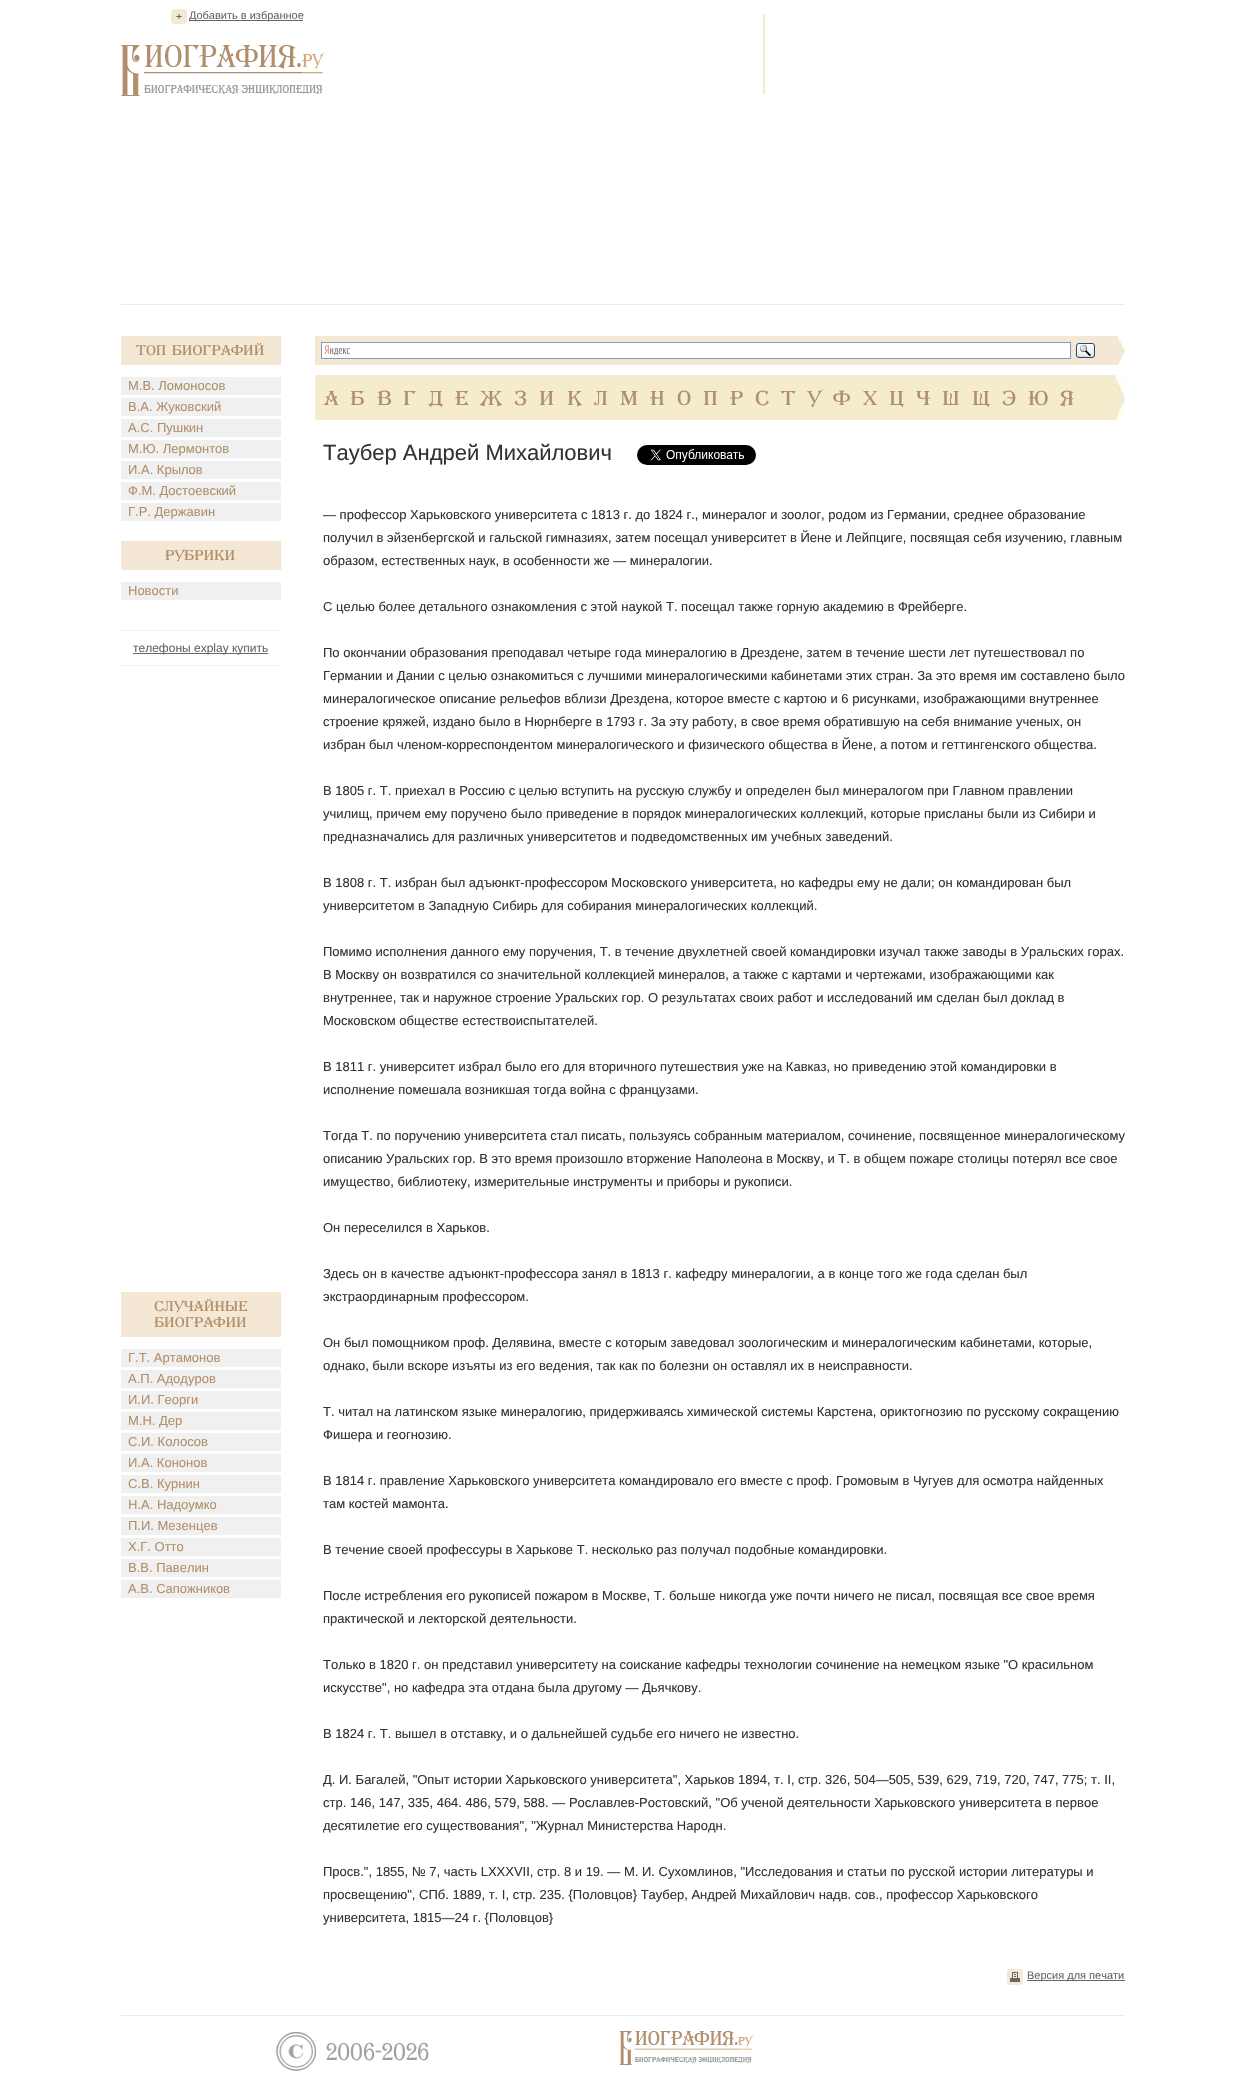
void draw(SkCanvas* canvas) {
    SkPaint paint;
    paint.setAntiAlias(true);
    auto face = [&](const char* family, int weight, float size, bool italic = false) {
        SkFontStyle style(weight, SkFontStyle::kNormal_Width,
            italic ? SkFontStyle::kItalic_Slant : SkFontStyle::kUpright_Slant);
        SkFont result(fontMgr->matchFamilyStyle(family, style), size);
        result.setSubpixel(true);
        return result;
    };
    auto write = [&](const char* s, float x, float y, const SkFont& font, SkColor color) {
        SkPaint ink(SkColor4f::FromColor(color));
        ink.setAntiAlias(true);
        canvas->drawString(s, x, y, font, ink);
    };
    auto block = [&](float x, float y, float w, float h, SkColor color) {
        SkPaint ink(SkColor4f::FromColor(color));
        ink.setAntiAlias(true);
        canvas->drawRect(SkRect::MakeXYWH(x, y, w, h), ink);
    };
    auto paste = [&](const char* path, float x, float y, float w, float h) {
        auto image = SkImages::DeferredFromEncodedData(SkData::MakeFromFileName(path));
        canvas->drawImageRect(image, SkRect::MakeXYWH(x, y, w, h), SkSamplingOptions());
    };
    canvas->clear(SK_ColorWHITE);
    block(121, 304, 1004, 1, SkColorSetRGB(244, 233, 213));
    paste("pic1.png", 171, 9, 16, 15);
    block(189, 20, 114, 1, SkColorSetRGB(102, 102, 102));
    auto kFont1 = face("Liberation Sans", 400, 11);
    write("Добавить в избранное", 189, 19, kFont1, SkColorSetRGB(102, 102, 102));
    paste("pic2.png", 763, 14, 2, 81);
    paste("pic3.png", 121, 45, 204, 51);
    block(121, 336, 160, 29, SkColorSetRGB(244, 232, 212));
    auto kFont2 = face("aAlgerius", 400, 14);
    write("Топ Биографий", 136, 355, kFont2, SkColorSetRGB(177, 143, 108));
    block(121, 377, 160, 18, SkColorSetRGB(240, 240, 240));
    auto kFont3 = face("Liberation Sans", 400, 13);
    write("М.В. Ломоносов", 128, 390, kFont3, SkColorSetRGB(177, 143, 108));
    block(121, 398, 160, 18, SkColorSetRGB(240, 240, 240));
    write("В.А. Жуковский", 128, 411, kFont3, SkColorSetRGB(177, 143, 108));
    block(121, 419, 160, 18, SkColorSetRGB(240, 240, 240));
    write("А.С. Пушкин", 128, 432, kFont3, SkColorSetRGB(177, 143, 108));
    block(121, 440, 160, 18, SkColorSetRGB(240, 240, 240));
    write("М.Ю. Лермонтов", 128, 453, kFont3, SkColorSetRGB(177, 143, 108));
    block(121, 461, 160, 18, SkColorSetRGB(240, 240, 240));
    write("И.А. Крылов", 128, 474, kFont3, SkColorSetRGB(177, 143, 108));
    block(121, 482, 160, 18, SkColorSetRGB(240, 240, 240));
    write("Ф.М. Достоевский", 128, 495, kFont3, SkColorSetRGB(177, 143, 108));
    block(121, 503, 160, 18, SkColorSetRGB(240, 240, 240));
    write("Г.Р. Державин", 128, 516, kFont3, SkColorSetRGB(177, 143, 108));
    block(121, 541, 160, 29, SkColorSetRGB(244, 232, 212));
    write("Рубрики", 165, 560, kFont2, SkColorSetRGB(177, 143, 108));
    block(121, 582, 160, 18, SkColorSetRGB(240, 240, 240));
    write("Новости", 128, 595, kFont3, SkColorSetRGB(177, 143, 108));
    block(121, 630, 160, 1, SkColorSetRGB(247, 238, 223));
    block(121, 665, 160, 1, SkColorSetRGB(247, 238, 223));
    block(133, 653, 135, 1, SkColorSetRGB(102, 102, 102));
    auto kFont4 = face("Liberation Sans", 400, 12);
    write("телефоны explay купить", 133, 652, kFont4, SkColorSetRGB(102, 102, 102));
    block(121, 1292, 160, 45, SkColorSetRGB(244, 232, 212));
    write("Случайные", 154, 1311, kFont2, SkColorSetRGB(177, 143, 108));
    write("биографии", 154, 1327, kFont2, SkColorSetRGB(177, 143, 108));
    block(121, 1349, 160, 18, SkColorSetRGB(240, 240, 240));
    write("Г.Т. Артамонов", 128, 1362, kFont3, SkColorSetRGB(177, 143, 108));
    block(121, 1370, 160, 18, SkColorSetRGB(240, 240, 240));
    write("А.П. Адодуров", 128, 1383, kFont3, SkColorSetRGB(177, 143, 108));
    block(121, 1391, 160, 18, SkColorSetRGB(240, 240, 240));
    write("И.И. Георги", 128, 1404, kFont3, SkColorSetRGB(177, 143, 108));
    block(121, 1412, 160, 18, SkColorSetRGB(240, 240, 240));
    write("М.Н. Дер", 128, 1425, kFont3, SkColorSetRGB(177, 143, 108));
    block(121, 1433, 160, 18, SkColorSetRGB(240, 240, 240));
    write("С.И. Колосов", 128, 1446, kFont3, SkColorSetRGB(177, 143, 108));
    block(121, 1454, 160, 18, SkColorSetRGB(240, 240, 240));
    write("И.А. Кононов", 128, 1467, kFont3, SkColorSetRGB(177, 143, 108));
    block(121, 1475, 160, 18, SkColorSetRGB(240, 240, 240));
    write("С.В. Курнин", 128, 1488, kFont3, SkColorSetRGB(177, 143, 108));
    block(121, 1496, 160, 18, SkColorSetRGB(240, 240, 240));
    write("Н.А. Надоумко", 128, 1509, kFont3, SkColorSetRGB(177, 143, 108));
    block(121, 1517, 160, 18, SkColorSetRGB(240, 240, 240));
    write("П.И. Мезенцев", 128, 1530, kFont3, SkColorSetRGB(177, 143, 108));
    block(121, 1538, 160, 18, SkColorSetRGB(240, 240, 240));
    write("Х.Г. Отто", 128, 1551, kFont3, SkColorSetRGB(177, 143, 108));
    block(121, 1559, 160, 18, SkColorSetRGB(240, 240, 240));
    write("В.В. Павелин", 128, 1572, kFont3, SkColorSetRGB(177, 143, 108));
    block(121, 1580, 160, 18, SkColorSetRGB(240, 240, 240));
    write("А.В. Сапожников", 128, 1593, kFont3, SkColorSetRGB(177, 143, 108));
    block(315, 336, 780, 29, SkColorSetRGB(244, 232, 212));
    block(322, 343, 748, 15, SK_ColorWHITE);
    paste("pic4.png", 324, 345, 26, 11);
    paint.setStyle(SkPaint::kStroke_Style);
    paint.setStrokeWidth(1);
    paint.setColor(SkColorSetRGB(127, 157, 185));
    canvas->drawRect(SkRect::MakeXYWH(321.5f, 342.5f, 749, 16), paint);
    paste("pic5.png", 1076, 343, 19, 15);
    canvas->save();
    canvas->clipRect(SkRect::MakeXYWH(1095, 336, 30, 29));
    paint.setStyle(SkPaint::kFill_Style);
    paint.setColor(SkColorSetRGB(244, 232, 212));
    canvas->drawPath(SkPathBuilder().moveTo(1095, 410).lineTo(1095, 292).lineTo(1125, 351).close().detach(), paint);
    canvas->restore();
    block(315, 375, 799, 45, SkColorSetRGB(245, 236, 206));
    paste("pic6.png", 1114, 375, 11, 45);
    auto kFont5 = face("aAlgerius", 400, 20);
    write("А", 324, 405, kFont5, SkColorSetRGB(177, 143, 108));
    write("Б", 350, 405, kFont5, SkColorSetRGB(177, 143, 108));
    write("В", 377, 405, kFont5, SkColorSetRGB(177, 143, 108));
    write("Г", 403, 405, kFont5, SkColorSetRGB(177, 143, 108));
    write("Д", 429, 405, kFont5, SkColorSetRGB(177, 143, 108));
    write("Е", 455, 405, kFont5, SkColorSetRGB(177, 143, 108));
    write("Ж", 480, 405, kFont5, SkColorSetRGB(177, 143, 108));
    write("З", 514, 405, kFont5, SkColorSetRGB(177, 143, 108));
    write("И", 539, 405, kFont5, SkColorSetRGB(177, 143, 108));
    write("К", 567, 405, kFont5, SkColorSetRGB(177, 143, 108));
    write("Л", 594, 405, kFont5, SkColorSetRGB(177, 143, 108));
    write("М", 620, 405, kFont5, SkColorSetRGB(177, 143, 108));
    write("Н", 650, 405, kFont5, SkColorSetRGB(177, 143, 108));
    write("О", 677, 405, kFont5, SkColorSetRGB(177, 143, 108));
    write("П", 703, 405, kFont5, SkColorSetRGB(177, 143, 108));
    write("Р", 730, 405, kFont5, SkColorSetRGB(177, 143, 108));
    write("С", 755, 405, kFont5, SkColorSetRGB(177, 143, 108));
    write("Т", 781, 405, kFont5, SkColorSetRGB(177, 143, 108));
    write("У", 807, 405, kFont5, SkColorSetRGB(177, 143, 108));
    write("Ф", 833, 405, kFont5, SkColorSetRGB(177, 143, 108));
    write("Х", 863, 405, kFont5, SkColorSetRGB(177, 143, 108));
    write("Ц", 889, 405, kFont5, SkColorSetRGB(177, 143, 108));
    write("Ч", 916, 405, kFont5, SkColorSetRGB(177, 143, 108));
    write("Ш", 942, 405, kFont5, SkColorSetRGB(177, 143, 108));
    write("Щ", 972, 405, kFont5, SkColorSetRGB(177, 143, 108));
    write("Э", 1002, 405, kFont5, SkColorSetRGB(177, 143, 108));
    write("Ю", 1028, 405, kFont5, SkColorSetRGB(177, 143, 108));
    write("Я", 1060, 405, kFont5, SkColorSetRGB(177, 143, 108));
    auto kFont6 = face("Liberation Sans", 400, 22);
    write("Таубер Андрей Михайлович", 323, 460, kFont6, SkColorSetRGB(51, 51, 51));
    paste("pic7.png", 637, 445, 119, 20);
    write("— профессор Харьковского университета с 1813 г. до 1824 г., минералог и зоолог, родом из Германии, среднее образование", 323, 519, kFont3, SkColorSetRGB(51, 51, 51));
    write("получил в эйзенбергской и гальской гимназиях, затем посещал университет в Йене и Лейпциге, посвящая себя изучению, главным", 323, 542, kFont3, SkColorSetRGB(51, 51, 51));
    write("образом, естественных наук, в особенности же — минералогии.", 323, 565, kFont3, SkColorSetRGB(51, 51, 51));
    write("С целью более детального ознакомления с этой наукой Т. посещал также горную академию в Фрейберге.", 323, 611, kFont3, SkColorSetRGB(51, 51, 51));
    write("По окончании образования преподавал четыре года минералогию в Дрездене, затем в течение шести лет путешествовал по", 323, 657, kFont3, SkColorSetRGB(51, 51, 51));
    write("Германии и Дании с целью ознакомиться с лучшими минералогическими кабинетами этих стран. За это время им составлено было", 323, 680, kFont3, SkColorSetRGB(51, 51, 51));
    write("минералогическое описание рельефов вблизи Дрездена, которое вместе с картою и 6 рисунками, изображающими внутреннее", 323, 703, kFont3, SkColorSetRGB(51, 51, 51));
    write("строение кряжей, издано было в Нюрнберге в 1793 г. За эту работу, в свое время обратившую на себя внимание ученых, он", 323, 726, kFont3, SkColorSetRGB(51, 51, 51));
    write("избран был членом-корреспондентом минералогического и физического общества в Йене, а потом и геттингенского общества.", 323, 749, kFont3, SkColorSetRGB(51, 51, 51));
    write("В 1805 г. Т. приехал в Россию с целью вступить на русскую службу и определен был минералогом при Главном правлении", 323, 795, kFont3, SkColorSetRGB(51, 51, 51));
    write("училищ, причем ему поручено было приведение в порядок минералогических коллекций, которые присланы были из Сибири и", 323, 818, kFont3, SkColorSetRGB(51, 51, 51));
    write("предназначались для различных университетов и подведомственных им учебных заведений.", 323, 841, kFont3, SkColorSetRGB(51, 51, 51));
    write("В 1808 г. Т. избран был адъюнкт-профессором Московского университета, но кафедры ему не дали; он командирован был", 323, 887, kFont3, SkColorSetRGB(51, 51, 51));
    write("университетом в Западную Сибирь для собирания минералогических коллекций.", 323, 910, kFont3, SkColorSetRGB(51, 51, 51));
    write("Помимо исполнения данного ему поручения, Т. в течение двухлетней своей командировки изучал также заводы в Уральских горах.", 323, 956, kFont3, SkColorSetRGB(51, 51, 51));
    write("В Москву он возвратился со значительной коллекцией минералов, а также с картами и чертежами, изображающими как", 323, 979, kFont3, SkColorSetRGB(51, 51, 51));
    write("внутреннее, так и наружное строение Уральских гор. О результатах своих работ и исследований им сделан был доклад в", 323, 1002, kFont3, SkColorSetRGB(51, 51, 51));
    write("Московском обществе естествоиспытателей.", 323, 1025, kFont3, SkColorSetRGB(51, 51, 51));
    write("В 1811 г. университет избрал было его для вторичного путешествия уже на Кавказ, но приведению этой командировки в", 323, 1071, kFont3, SkColorSetRGB(51, 51, 51));
    write("исполнение помешала возникшая тогда война с французами.", 323, 1094, kFont3, SkColorSetRGB(51, 51, 51));
    write("Тогда Т. по поручению университета стал писать, пользуясь собранным материалом, сочинение, посвященное минералогическому", 323, 1140, kFont3, SkColorSetRGB(51, 51, 51));
    write("описанию Уральских гор. В это время произошло вторжение Наполеона в Москву, и Т. в общем пожаре столицы потерял все свое", 323, 1163, kFont3, SkColorSetRGB(51, 51, 51));
    write("имущество, библиотеку, измерительные инструменты и приборы и рукописи.", 323, 1186, kFont3, SkColorSetRGB(51, 51, 51));
    write("Он переселился в Харьков.", 323, 1232, kFont3, SkColorSetRGB(51, 51, 51));
    write("Здесь он в качестве адъюнкт-профессора занял в 1813 г. кафедру минералогии, а в конце того же года сделан был", 323, 1278, kFont3, SkColorSetRGB(51, 51, 51));
    write("экстраординарным профессором.", 323, 1301, kFont3, SkColorSetRGB(51, 51, 51));
    write("Он был помощником проф. Делявина, вместе с которым заведовал зоологическим и минералогическим кабинетами, которые,", 323, 1347, kFont3, SkColorSetRGB(51, 51, 51));
    write("однако, были вскоре изъяты из его ведения, так как по болезни он оставлял их в неисправности.", 323, 1370, kFont3, SkColorSetRGB(51, 51, 51));
    write("Т. читал на латинском языке минералогию, придерживаясь химической системы Карстена, ориктогнозию по русскому сокращению", 323, 1416, kFont3, SkColorSetRGB(51, 51, 51));
    write("Фишера и геогнозию.", 323, 1439, kFont3, SkColorSetRGB(51, 51, 51));
    write("В 1814 г. правление Харьковского университета командировало его вместе с проф. Громовым в Чугуев для осмотра найденных", 323, 1485, kFont3, SkColorSetRGB(51, 51, 51));
    write("там костей мамонта.", 323, 1508, kFont3, SkColorSetRGB(51, 51, 51));
    write("В течение своей профессуры в Харькове Т. несколько раз получал подобные командировки.", 323, 1554, kFont3, SkColorSetRGB(51, 51, 51));
    write("После истребления его рукописей пожаром в Москве, Т. больше никогда уже почти ничего не писал, посвящая все свое время", 323, 1600, kFont3, SkColorSetRGB(51, 51, 51));
    write("практической и лекторской деятельности.", 323, 1623, kFont3, SkColorSetRGB(51, 51, 51));
    write("Только в 1820 г. он представил университету на соискание кафедры технологии сочинение на немецком языке \"О красильном", 323, 1669, kFont3, SkColorSetRGB(51, 51, 51));
    write("искусстве\", но кафедра эта отдана была другому — Дьячкову.", 323, 1692, kFont3, SkColorSetRGB(51, 51, 51));
    write("В 1824 г. Т. вышел в отставку, и о дальнейшей судьбе его ничего не известно.", 323, 1738, kFont3, SkColorSetRGB(51, 51, 51));
    write("Д. И. Багалей, \"Опыт истории Харьковского университета\", Харьков 1894, т. I, стр. 326, 504—505, 539, 629, 719, 720, 747, 775; т. II,", 323, 1784, kFont3, SkColorSetRGB(51, 51, 51));
    write("стр. 146, 147, 335, 464. 486, 579, 588. — Рославлев-Ростовский, \"Об ученой деятельности Харьковского университета в первое", 323, 1807, kFont3, SkColorSetRGB(51, 51, 51));
    write("десятилетие его существования\", \"Журнал Министерства Народн.", 323, 1830, kFont3, SkColorSetRGB(51, 51, 51));
    write("Просв.\", 1855, № 7, часть LXXXVII, стр. 8 и 19. — М. И. Сухомлинов, \"Исследования и статьи по русской истории литературы и", 323, 1876, kFont3, SkColorSetRGB(51, 51, 51));
    write("просвещению\", СПб. 1889, т. I, стр. 235. {Половцов} Таубер, Андрей Михайлович надв. сов., профессор Харьковского", 323, 1899, kFont3, SkColorSetRGB(51, 51, 51));
    write("университета, 1815—24 г. {Половцов}", 323, 1922, kFont3, SkColorSetRGB(51, 51, 51));
    paste("pic8.png", 1007, 1969, 16, 16);
    block(1027, 1980, 98, 1, SkColorSetRGB(102, 102, 102));
    write("Версия для печати", 1027, 1979, kFont1, SkColorSetRGB(102, 102, 102));
    block(121, 2015, 1004, 1, SkColorSetRGB(244, 233, 213));
    paste("pic9.png", 276, 2031, 41, 40);
    auto kFont7 = face("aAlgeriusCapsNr", 400, 24);
    write("2006-2026", 326, 2060, kFont7, SkColorSetRGB(159, 159, 159));
    paste("pic10.png", 619, 2031, 134, 34);
}
